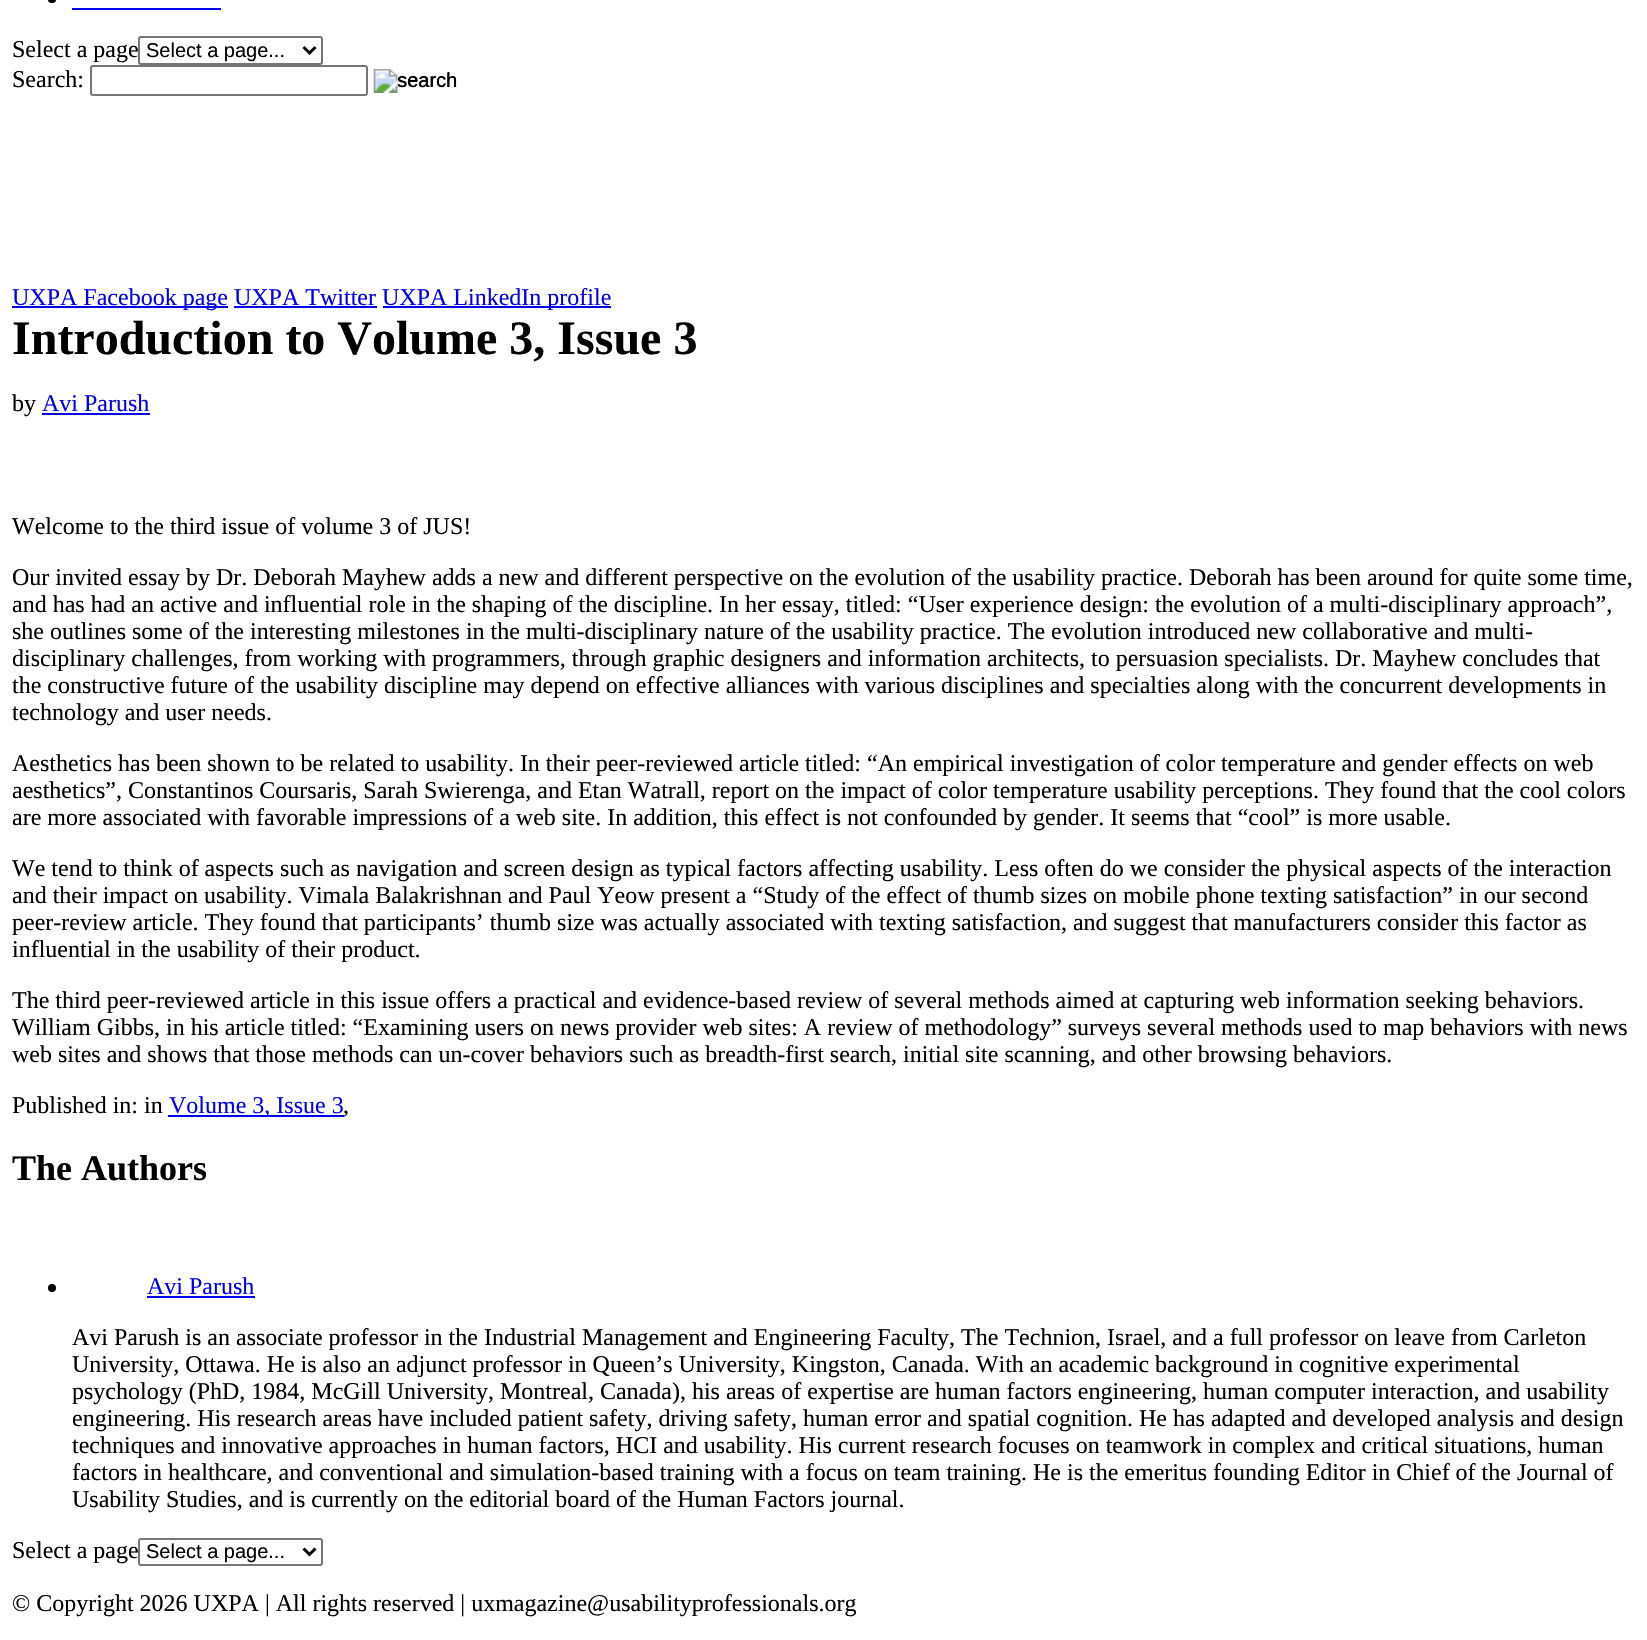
void draw(SkCanvas* canvas) {
    SkPaint paint;
    paint.setAntiAlias(true);
    auto face = [&](const char* family, int weight, float size, bool italic = false) {
        SkFontStyle style(weight, SkFontStyle::kNormal_Width,
            italic ? SkFontStyle::kItalic_Slant : SkFontStyle::kUpright_Slant);
        SkFont result(fontMgr->matchFamilyStyle(family, style), size);
        result.setSubpixel(true);
        return result;
    };
    auto write = [&](const char* s, float x, float y, const SkFont& font, SkColor color) {
        SkPaint ink(SkColor4f::FromColor(color));
        ink.setAntiAlias(true);
        canvas->drawString(s, x, y, font, ink);
    };
    auto block = [&](float x, float y, float w, float h, SkColor color) {
        SkPaint ink(SkColor4f::FromColor(color));
        ink.setAntiAlias(true);
        canvas->drawRect(SkRect::MakeXYWH(x, y, w, h), ink);
    };
    auto card = [&](float x, float y, float w, float h, float radius, SkColor color) {
        SkPaint ink(SkColor4f::FromColor(color));
        ink.setAntiAlias(true);
        canvas->drawRoundRect(SkRect::MakeXYWH(x, y, w, h), radius, radius, ink);
    };
    auto paste = [&](const char* path, float x, float y, float w, float h) {
        auto image = SkImages::DeferredFromEncodedData(SkData::MakeFromFileName(path));
        canvas->drawImageRect(image, SkRect::MakeXYWH(x, y, w, h), SkSamplingOptions());
    };
    canvas->clear(SK_ColorWHITE);
    card(48, -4, 8, 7, 3.5f, SK_ColorBLACK);
    block(72, 8, 149, 2, SkColorSetRGB(0, 0, 238));
    auto kFont1 = face("Liberation Serif", 400, 24);
    write("Select a page", 12, 57, kFont1, SK_ColorBLACK);
    paint.setStyle(SkPaint::kStroke_Style);
    paint.setStrokeWidth(2);
    paint.setColor(SkColorSetRGB(118, 118, 118));
    canvas->drawRoundRect(SkRect::MakeXYWH(139, 37, 183, 27), 2, 2, paint);
    paint.setStrokeWidth(3);
    paint.setColor(SK_ColorBLACK);
    canvas->drawPath(SkPathBuilder().moveTo(303.5f, 47).lineTo(309.5f, 53).lineTo(315.5f, 47).detach(), paint);
    auto kFont2 = face("Liberation Sans", 400, 20);
    write("Select a page...", 146, 57, kFont2, SK_ColorBLACK);
    write("Search:", 12, 87, kFont1, SK_ColorBLACK);
    paint.setStrokeWidth(2);
    paint.setColor(SkColorSetRGB(118, 118, 118));
    canvas->drawRoundRect(SkRect::MakeXYWH(91, 66, 276, 29), 2, 2, paint);
    paste("pic1.png", 373, 69, 84, 24);
    write("search", 397, 87, kFont2, SK_ColorBLACK);
    block(12, 306, 216, 2, SkColorSetRGB(0, 0, 238));
    write("UXPA Facebook page UXPA Twitter", 12, 305, kFont1, SkColorSetRGB(0, 0, 238));
    block(383, 306, 228, 2, SkColorSetRGB(0, 0, 238));
    write("UXPA LinkedIn profile", 382, 305, kFont1, SkColorSetRGB(0, 0, 238));
    block(234, 306, 143, 2, SkColorSetRGB(0, 0, 238));
    auto kFont3 = face("Liberation Serif", 700, 48);
    write("Introduction to Volume 3, Issue 3", 12, 354, kFont3, SK_ColorBLACK);
    write("by", 12, 411, kFont1, SK_ColorBLACK);
    write("Avi Parush", 42, 411, kFont1, SkColorSetRGB(0, 0, 238));
    block(42, 413, 108, 2, SkColorSetRGB(0, 0, 238));
    write("Welcome to the third issue of volume 3 of JUS!", 12, 534, kFont1, SK_ColorBLACK);
    write("Our invited essay by Dr. Deborah Mayhew adds a new and different perspective on the evolution of the usability practice. Deborah has been around for quite some time,", 12, 585, kFont1, SK_ColorBLACK);
    write("and has had an active and influential role in the shaping of the discipline. In her essay, titled: “User experience design: the evolution of a multi-disciplinary approach”,", 12, 612, kFont1, SK_ColorBLACK);
    write("she outlines some of the interesting milestones in the multi-disciplinary nature of the usability practice. The evolution introduced new collaborative and multi-", 12, 639, kFont1, SK_ColorBLACK);
    write("disciplinary challenges, from working with programmers, through graphic designers and information architects, to persuasion specialists. Dr. Mayhew concludes that", 12, 666, kFont1, SK_ColorBLACK);
    write("the constructive future of the usability discipline may depend on effective alliances with various disciplines and specialties along with the concurrent developments in", 12, 693, kFont1, SK_ColorBLACK);
    write("technology and user needs.", 12, 720, kFont1, SK_ColorBLACK);
    write("Aesthetics has been shown to be related to usability. In their peer-reviewed article titled: “An empirical investigation of color temperature and gender effects on web", 12, 771, kFont1, SK_ColorBLACK);
    write("aesthetics”, Constantinos Coursaris, Sarah Swierenga, and Etan Watrall, report on the impact of color temperature usability perceptions. They found that the cool colors", 12, 798, kFont1, SK_ColorBLACK);
    write("are more associated with favorable impressions of a web site. In addition, this effect is not confounded by gender. It seems that “cool” is more usable.", 12, 825, kFont1, SK_ColorBLACK);
    write("We tend to think of aspects such as navigation and screen design as typical factors affecting usability. Less often do we consider the physical aspects of the interaction", 12, 876, kFont1, SK_ColorBLACK);
    write("and their impact on usability. Vimala Balakrishnan and Paul Yeow present a “Study of the effect of thumb sizes on mobile phone texting satisfaction” in our second", 12, 903, kFont1, SK_ColorBLACK);
    write("peer-review article. They found that participants’ thumb size was actually associated with texting satisfaction, and suggest that manufacturers consider this factor as", 12, 930, kFont1, SK_ColorBLACK);
    write("influential in the usability of their product.", 12, 957, kFont1, SK_ColorBLACK);
    write("The third peer-reviewed article in this issue offers a practical and evidence-based review of several methods aimed at capturing web information seeking behaviors.", 12, 1008, kFont1, SK_ColorBLACK);
    write("William Gibbs, in his article titled: “Examining users on news provider web sites: A review of methodology” surveys several methods used to map behaviors with news", 12, 1035, kFont1, SK_ColorBLACK);
    write("web sites and shows that those methods can un-cover behaviors such as breadth-first search, initial site scanning, and other browsing behaviors.", 12, 1062, kFont1, SK_ColorBLACK);
    write("Published in: in", 12, 1113, kFont1, SK_ColorBLACK);
    block(168, 1115, 176, 2, SkColorSetRGB(0, 0, 238));
    write("Volume 3, Issue 3", 169, 1113, kFont1, SkColorSetRGB(0, 0, 238));
    write(",", 343, 1113, kFont1, SK_ColorBLACK);
    auto kFont4 = face("Liberation Serif", 700, 36);
    write("The Authors", 12, 1180, kFont4, SK_ColorBLACK);
    paint.setStyle(SkPaint::kFill_Style);
    paint.setColor(SK_ColorBLACK);
    canvas->drawCircle(52, 1288, 4, paint);
    write("Avi Parush", 147, 1294, kFont1, SkColorSetRGB(0, 0, 238));
    block(147, 1296, 108, 2, SkColorSetRGB(0, 0, 238));
    write("Avi Parush is an associate professor in the Industrial Management and Engineering Faculty, The Technion, Israel, and a full professor on leave from Carleton", 72, 1345, kFont1, SK_ColorBLACK);
    write("University, Ottawa. He is also an adjunct professor in Queen’s University, Kingston, Canada. With an academic background in cognitive experimental", 72, 1372, kFont1, SK_ColorBLACK);
    write("psychology (PhD, 1984, McGill University, Montreal, Canada), his areas of expertise are human factors engineering, human computer interaction, and usability", 72, 1399, kFont1, SK_ColorBLACK);
    write("engineering. His research areas have included patient safety, driving safety, human error and spatial cognition. He has adapted and developed analysis and design", 72, 1426, kFont1, SK_ColorBLACK);
    write("techniques and innovative approaches in human factors, HCI and usability. His current research focuses on teamwork in complex and critical situations, human", 72, 1453, kFont1, SK_ColorBLACK);
    write("factors in healthcare, and conventional and simulation-based training with a focus on team training. He is the emeritus founding Editor in Chief of the Journal of", 72, 1480, kFont1, SK_ColorBLACK);
    write("Usability Studies, and is currently on the editorial board of the Human Factors journal.", 72, 1507, kFont1, SK_ColorBLACK);
    write("Select a page", 12, 1558, kFont1, SK_ColorBLACK);
    paint.setStyle(SkPaint::kStroke_Style);
    paint.setColor(SkColorSetRGB(118, 118, 118));
    canvas->drawRoundRect(SkRect::MakeXYWH(139, 1539, 183, 26), 2, 2, paint);
    paint.setStrokeWidth(3);
    paint.setColor(SK_ColorBLACK);
    canvas->drawPath(SkPathBuilder().moveTo(303.5f, 1548.5f).lineTo(309.5f, 1554.5f).lineTo(315.5f, 1548.5f).detach(), paint);
    write("Select a page...", 146, 1558, kFont2, SK_ColorBLACK);
    write("© Copyright 2026 UXPA | All rights reserved | uxmagazine@usabilityprofessionals.org", 12, 1611, kFont1, SK_ColorBLACK);
}
